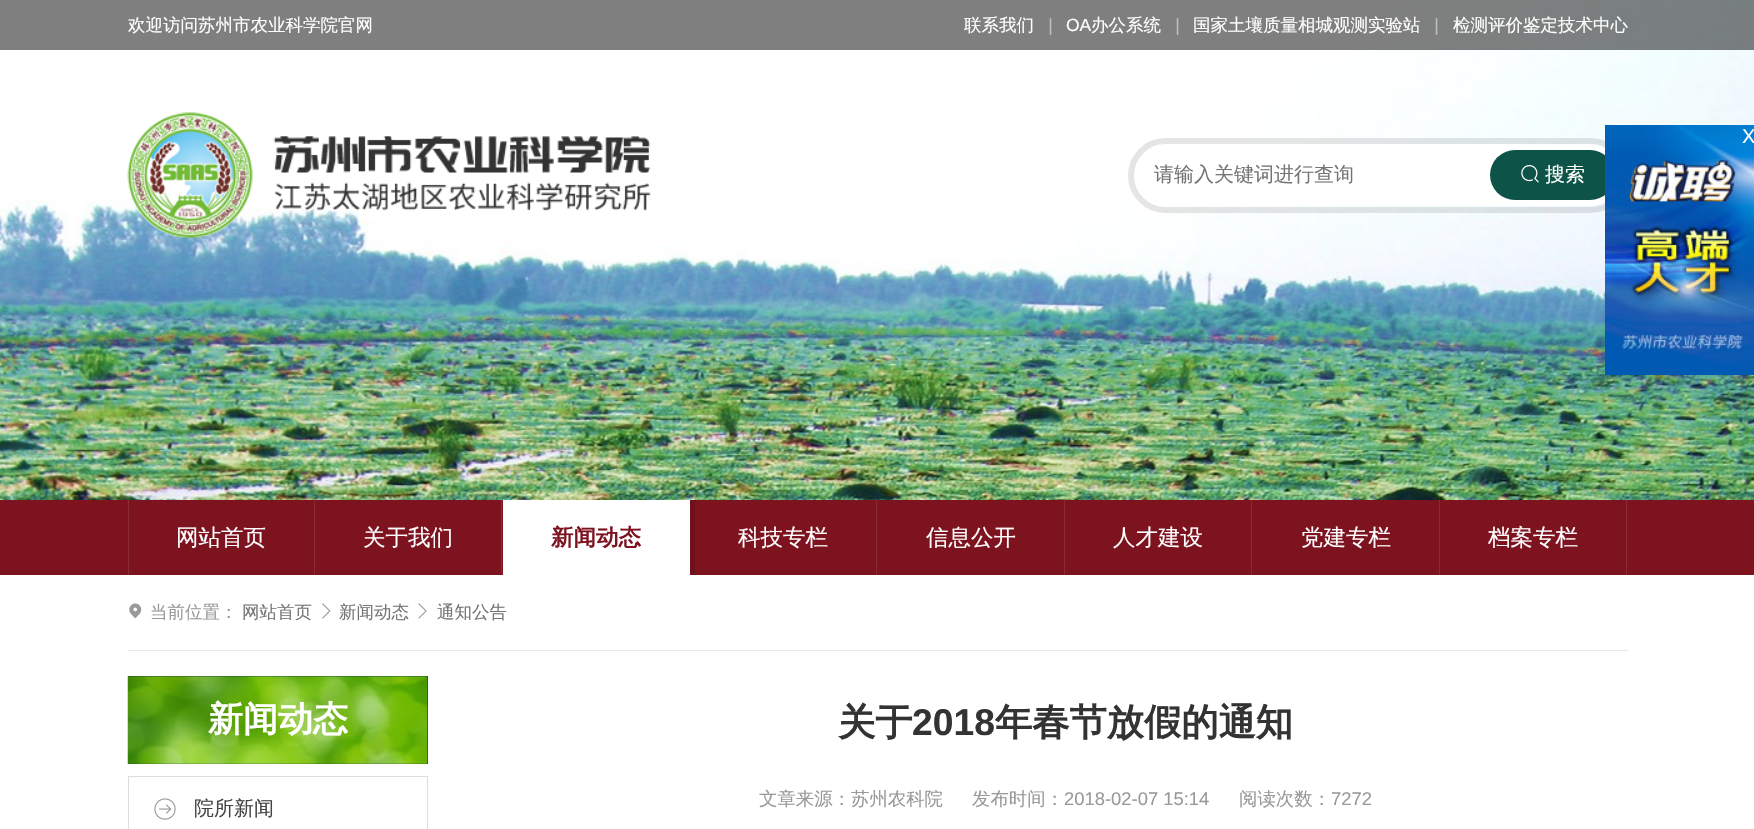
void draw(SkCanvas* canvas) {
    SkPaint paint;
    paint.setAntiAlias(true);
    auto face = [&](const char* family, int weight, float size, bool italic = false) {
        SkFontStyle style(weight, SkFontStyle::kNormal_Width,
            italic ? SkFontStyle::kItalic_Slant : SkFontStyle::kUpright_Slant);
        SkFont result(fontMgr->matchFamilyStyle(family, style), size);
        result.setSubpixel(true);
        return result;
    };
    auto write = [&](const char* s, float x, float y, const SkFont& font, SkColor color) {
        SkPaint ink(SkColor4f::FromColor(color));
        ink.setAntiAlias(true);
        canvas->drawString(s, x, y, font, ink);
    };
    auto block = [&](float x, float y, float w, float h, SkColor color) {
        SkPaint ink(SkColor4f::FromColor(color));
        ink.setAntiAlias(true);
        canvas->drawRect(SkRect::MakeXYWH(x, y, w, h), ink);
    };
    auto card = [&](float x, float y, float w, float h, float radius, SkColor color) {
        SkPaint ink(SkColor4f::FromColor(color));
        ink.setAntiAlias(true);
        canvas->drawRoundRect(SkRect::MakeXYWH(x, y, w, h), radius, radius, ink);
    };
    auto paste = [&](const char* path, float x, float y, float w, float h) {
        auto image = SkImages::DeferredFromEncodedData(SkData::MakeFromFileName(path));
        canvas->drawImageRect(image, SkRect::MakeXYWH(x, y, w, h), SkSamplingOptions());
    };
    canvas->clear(SkColorSetRGB(126, 19, 32));
    paint.setColor(SkColorSetARGB(26, 0, 0, 0));
    paint.setMaskFilter(SkMaskFilter::MakeBlur(kNormal_SkBlurStyle, 0.5f));
    canvas->drawRect(SkRect::MakeXYWH(508, 500, 187, 75), paint);
    paint.setMaskFilter(nullptr);
    paste("pic1.png", 0, 0, 1754, 500);
    block(0, 0, 1754, 50, SkColorSetARGB(128, 0, 0, 0));
    auto kFont1 = face("WenQuanYi Zen Hei", 500, 17.5f);
    write("欢迎访问苏州市农业科学院官网", 128, 31, kFont1, SK_ColorWHITE);
    write("联系我们", 964, 31, kFont1, SK_ColorWHITE);
    auto kFont2 = face("Liberation Sans", 400, 17.5f, true);
    write("|", 1048, 31, kFont2, SkColorSetRGB(191, 191, 191));
    auto kFont3 = face("Liberation Sans", 400, 17.5f);
    write("OA", 1066, 31, kFont3, SK_ColorWHITE);
    write("办公系统", 1091, 31, kFont1, SK_ColorWHITE);
    write("|", 1175, 31, kFont2, SkColorSetRGB(191, 191, 191));
    write("国家土壤质量相城观测实验站", 1193, 31, kFont1, SK_ColorWHITE);
    write("|", 1434, 31, kFont2, SkColorSetRGB(191, 191, 191));
    write("检测评价鉴定技术中心", 1453, 31, kFont1, SK_ColorWHITE);
    paste("pic2.png", 127, 112, 524, 126);
    card(1134, 144, 487, 62, 31, SK_ColorWHITE);
    paint.setStyle(SkPaint::kStroke_Style);
    paint.setStrokeWidth(6);
    canvas->drawRoundRect(SkRect::MakeXYWH(1131, 141, 494, 69), 34.5f, 34.5f, paint);
    auto kFont4 = face("WenQuanYi Zen Hei", 500, 20);
    write("请输入关键词进行查询", 1154, 181, kFont4, SkColorSetRGB(117, 117, 117));
    card(1490, 150, 125, 50, 25, SkColorSetRGB(13, 83, 71));
    paste("pic3.png", 1521, 165, 18, 18);
    write("搜索", 1545, 181, kFont4, SK_ColorWHITE);
    paste("pic4.png", 1605, 125, 149, 250);
    auto kFont5 = face("Liberation Sans", 400, 20);
    write("X", 1742, 143, kFont5, SK_ColorWHITE);
    block(314, 500, 1, 75, SkColorSetRGB(139, 43, 54));
    block(128, 500, 1, 75, SkColorSetRGB(139, 43, 54));
    auto kFont6 = face("WenQuanYi Zen Hei", 500, 22.5f);
    write("网站首页", 176, 545, kFont6, SK_ColorWHITE);
    block(501, 500, 1, 75, SkColorSetRGB(139, 43, 54));
    write("关于我们", 363, 545, kFont6, SK_ColorWHITE);
    block(503, 500, 187, 75, SK_ColorWHITE);
    auto kFont7 = face("WenQuanYi Zen Hei", 700, 22.5f);
    write("新闻动态", 551, 545, kFont7, SkColorSetRGB(126, 19, 32));
    block(876, 500, 1, 75, SkColorSetRGB(139, 43, 54));
    write("科技专栏", 738, 545, kFont6, SK_ColorWHITE);
    block(1064, 500, 1, 75, SkColorSetRGB(139, 43, 54));
    write("信息公开", 926, 545, kFont6, SK_ColorWHITE);
    block(1251, 500, 1, 75, SkColorSetRGB(139, 43, 54));
    write("人才建设", 1113, 545, kFont6, SK_ColorWHITE);
    block(1439, 500, 1, 75, SkColorSetRGB(139, 43, 54));
    write("党建专栏", 1301, 545, kFont6, SK_ColorWHITE);
    block(1626, 500, 1, 75, SkColorSetRGB(139, 43, 54));
    write("档案专栏", 1488, 545, kFont6, SK_ColorWHITE);
    block(0, 575, 1754, 254, SK_ColorWHITE);
    block(128, 650, 1500, 1, SkColorSetRGB(230, 230, 230));
    paste("pic5.png", 129, 603, 13, 16);
    write("当前位置：", 150, 618, kFont1, SkColorSetRGB(153, 153, 153));
    write("网站首页", 242, 618, kFont1, SkColorSetRGB(117, 117, 117));
    paste("pic6.png", 322, 603, 9, 16);
    write("新闻动态", 339, 618, kFont1, SkColorSetRGB(117, 117, 117));
    paste("pic7.png", 418, 603, 9, 16);
    write("通知公告", 437, 618, kFont1, SkColorSetRGB(117, 117, 117));
    block(128, 676, 300, 88, SkColorSetRGB(13, 83, 71));
    paste("pic8.png", 127, 676, 301, 88);
    auto kFont8 = face("WenQuanYi Zen Hei", 700, 35);
    write("新闻动态", 208, 731, kFont8, SK_ColorWHITE);
    paint.setStrokeWidth(1);
    paint.setColor(SkColorSetRGB(221, 221, 221));
    canvas->drawRect(SkRect::MakeXYWH(128.5f, 776.5f, 299, 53), paint);
    paste("pic9.png", 154, 798, 22, 22);
    write("院所新闻", 194, 815, kFont4, SkColorSetRGB(68, 68, 68));
    auto kFont9 = face("WenQuanYi Zen Hei", 700, 37.25f);
    write("关于", 838, 735, kFont9, SkColorSetRGB(51, 51, 51));
    auto kFont10 = face("Liberation Sans", 700, 37.25f);
    write("2018", 912, 735, kFont10, SkColorSetRGB(51, 51, 51));
    write("年春节放假的通知", 995, 735, kFont9, SkColorSetRGB(51, 51, 51));
    auto kFont11 = face("WenQuanYi Zen Hei", 500, 18.4f);
    write("文章来源：苏州农科院", 759, 805, kFont11, SkColorSetRGB(153, 153, 153));
    write("发布时间：", 972, 805, kFont11, SkColorSetRGB(153, 153, 153));
    auto kFont12 = face("Liberation Sans", 400, 18.4f);
    write("2018-02-07 15:14", 1064, 805, kFont12, SkColorSetRGB(153, 153, 153));
    write("阅读次数：", 1239, 805, kFont11, SkColorSetRGB(153, 153, 153));
    write("7272", 1331, 805, kFont12, SkColorSetRGB(153, 153, 153));
}
